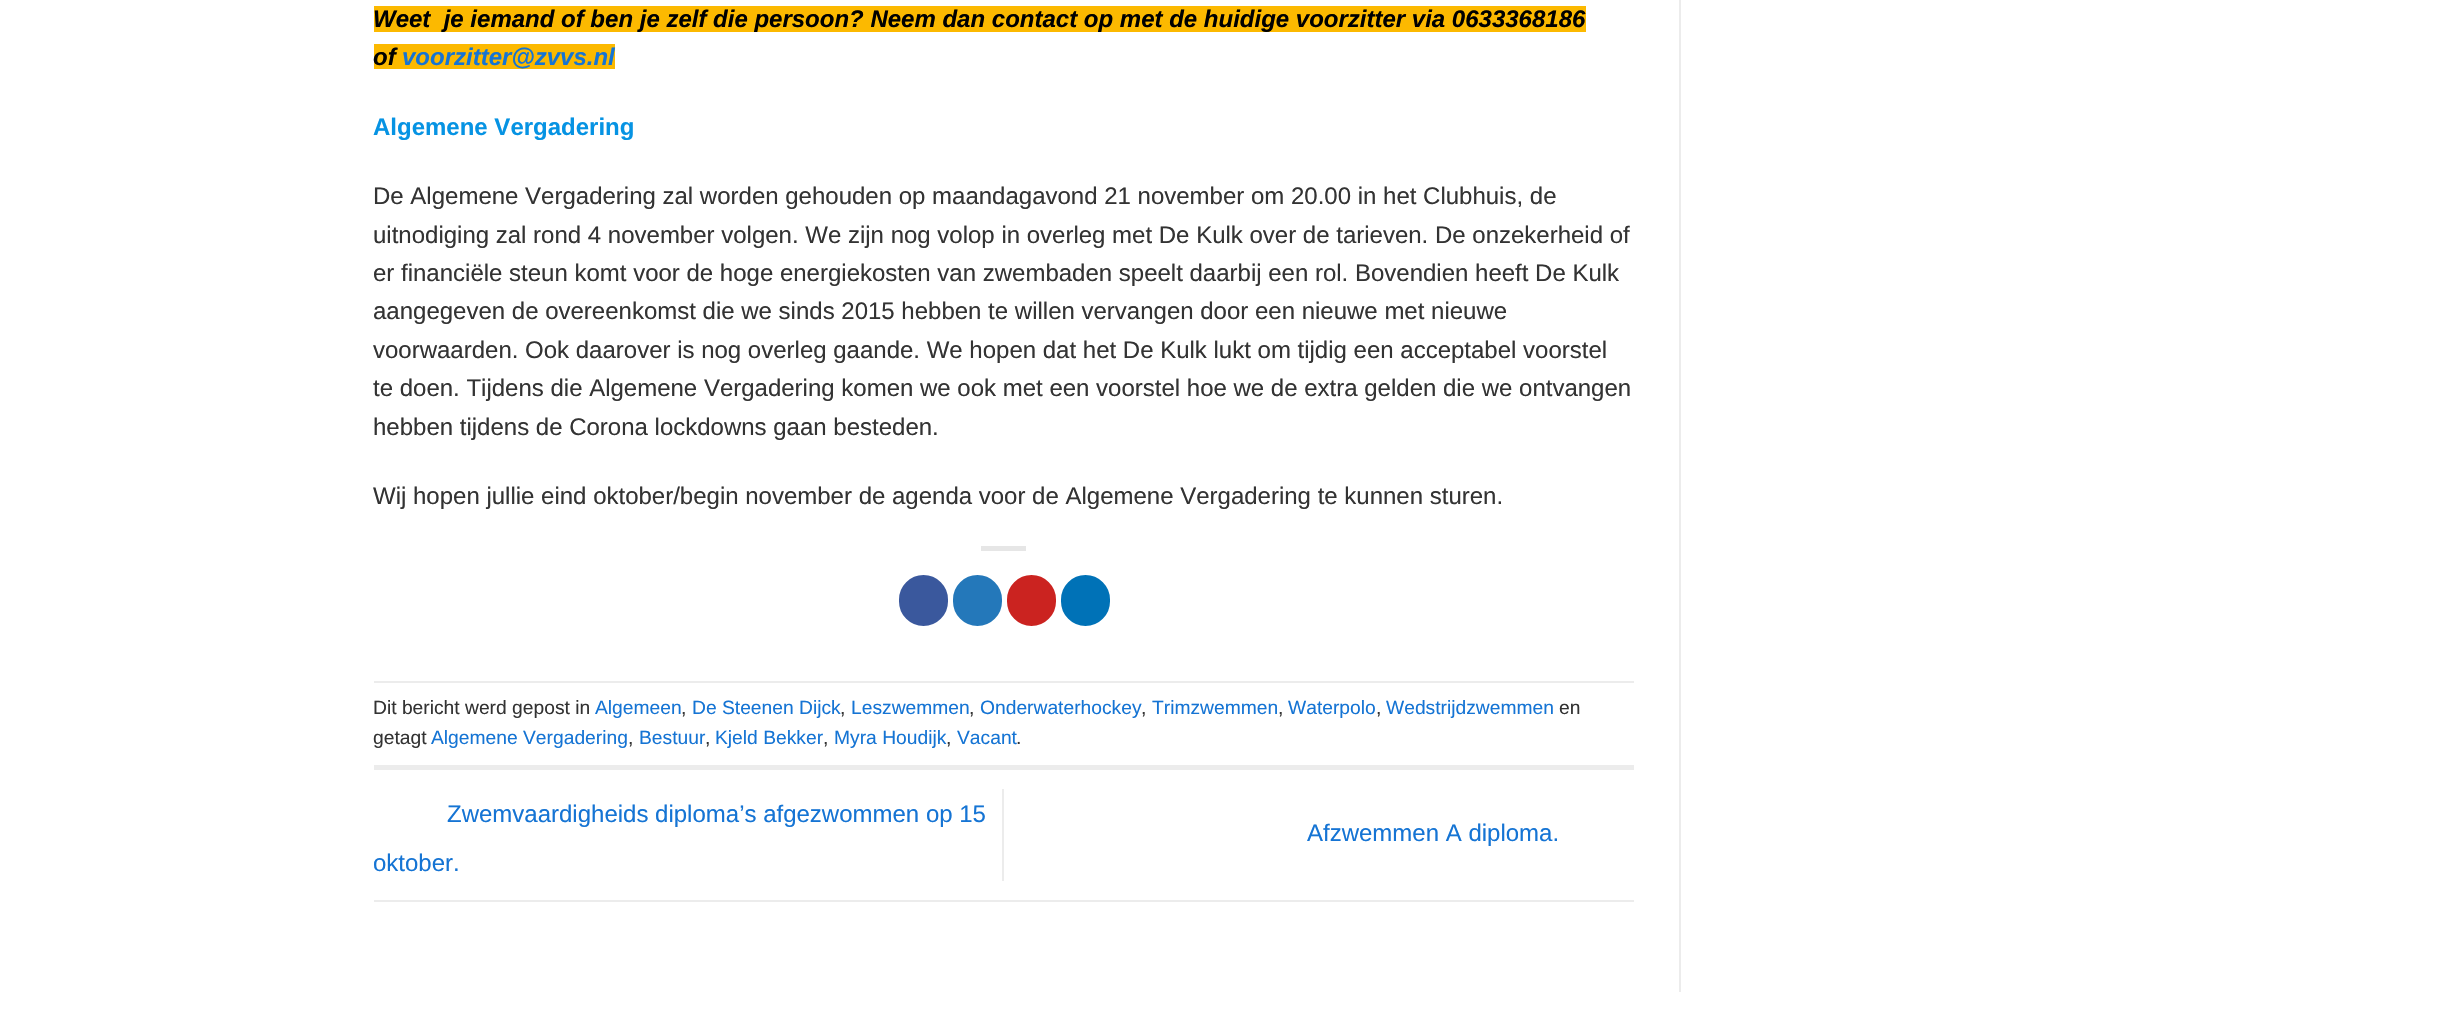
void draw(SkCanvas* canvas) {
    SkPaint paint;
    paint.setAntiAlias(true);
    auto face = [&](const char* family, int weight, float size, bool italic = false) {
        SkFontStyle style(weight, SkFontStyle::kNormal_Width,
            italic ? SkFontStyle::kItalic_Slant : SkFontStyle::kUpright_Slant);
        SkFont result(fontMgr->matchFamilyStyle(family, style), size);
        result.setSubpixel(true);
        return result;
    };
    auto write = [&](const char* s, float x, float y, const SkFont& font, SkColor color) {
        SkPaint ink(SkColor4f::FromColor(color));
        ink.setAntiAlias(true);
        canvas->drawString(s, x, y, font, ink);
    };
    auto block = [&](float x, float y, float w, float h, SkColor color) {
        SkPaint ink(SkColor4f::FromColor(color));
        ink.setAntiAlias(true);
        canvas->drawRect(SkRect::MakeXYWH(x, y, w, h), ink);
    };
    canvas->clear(SK_ColorWHITE);
    block(374, 6, 1212, 26, SkColorSetRGB(252, 185, 0));
    auto kFont1 = face("Liberation Sans", 700, 24, true);
    write("Weet  je iemand of ben je zelf die persoon? Neem dan contact op met de huidige voorzitter via 0633368186", 373, 27, kFont1, SK_ColorBLACK);
    block(374, 44, 241, 25, SkColorSetRGB(252, 185, 0));
    write("of", 373, 65, kFont1, SK_ColorBLACK);
    write("voorzitter@zvvs.nl", 402, 65, kFont1, SkColorSetRGB(21, 116, 212));
    auto kFont2 = face("Liberation Sans", 700, 24);
    write("Algemene Vergadering", 373, 135, kFont2, SkColorSetRGB(6, 147, 227));
    auto kFont3 = face("Liberation Sans", 400, 24);
    write("De Algemene Vergadering zal worden gehouden op maandagavond 21 november om 20.00 in het Clubhuis, de", 373, 204, kFont3, SkColorSetRGB(51, 51, 51));
    write("uitnodiging zal rond 4 november volgen. We zijn nog volop in overleg met De Kulk over de tarieven. De onzekerheid of", 373, 243, kFont3, SkColorSetRGB(51, 51, 51));
    write("er financiële steun komt voor de hoge energiekosten van zwembaden speelt daarbij een rol. Bovendien heeft De Kulk", 373, 281, kFont3, SkColorSetRGB(51, 51, 51));
    write("aangegeven de overeenkomst die we sinds 2015 hebben te willen vervangen door een nieuwe met nieuwe", 373, 319, kFont3, SkColorSetRGB(51, 51, 51));
    write("voorwaarden. Ook daarover is nog overleg gaande. We hopen dat het De Kulk lukt om tijdig een acceptabel voorstel", 373, 358, kFont3, SkColorSetRGB(51, 51, 51));
    write("te doen. Tijdens die Algemene Vergadering komen we ook met een voorstel hoe we de extra gelden die we ontvangen", 373, 396, kFont3, SkColorSetRGB(51, 51, 51));
    write("hebben tijdens de Corona lockdowns gaan besteden.", 373, 435, kFont3, SkColorSetRGB(51, 51, 51));
    write("Wij hopen jullie eind oktober/begin november de agenda voor de Algemene Vergadering te kunnen sturen.", 373, 504, kFont3, SkColorSetRGB(51, 51, 51));
    block(981, 546, 45, 5, SkColorSetRGB(230, 230, 230));
    paint.setColor(SkColorSetRGB(58, 88, 157));
    canvas->drawRoundRect(SkRect::MakeXYWH(900, 576, 47, 49), 23.5f, 23.5f, paint);
    paint.setStyle(SkPaint::kStroke_Style);
    paint.setStrokeWidth(2);
    canvas->drawRoundRect(SkRect::MakeXYWH(900, 576, 47, 49), 23.5f, 23.5f, paint);
    paint.setStyle(SkPaint::kFill_Style);
    paint.setColor(SkColorSetRGB(36, 120, 186));
    canvas->drawRoundRect(SkRect::MakeXYWH(954, 576, 47, 49), 23.5f, 23.5f, paint);
    paint.setStyle(SkPaint::kStroke_Style);
    canvas->drawRoundRect(SkRect::MakeXYWH(954, 576, 47, 49), 23.5f, 23.5f, paint);
    paint.setStyle(SkPaint::kFill_Style);
    paint.setColor(SkColorSetRGB(203, 35, 32));
    canvas->drawRoundRect(SkRect::MakeXYWH(1008, 576, 47, 49), 23.5f, 23.5f, paint);
    paint.setStyle(SkPaint::kStroke_Style);
    canvas->drawRoundRect(SkRect::MakeXYWH(1008, 576, 47, 49), 23.5f, 23.5f, paint);
    paint.setStyle(SkPaint::kFill_Style);
    paint.setColor(SkColorSetRGB(0, 114, 183));
    canvas->drawRoundRect(SkRect::MakeXYWH(1062, 576, 47, 49), 23.5f, 23.5f, paint);
    paint.setStyle(SkPaint::kStroke_Style);
    canvas->drawRoundRect(SkRect::MakeXYWH(1062, 576, 47, 49), 23.5f, 23.5f, paint);
    block(374, 681, 1260, 2, SkColorSetRGB(236, 236, 236));
    block(374, 765, 1260, 5, SkColorSetRGB(236, 236, 236));
    auto kFont4 = face("Liberation Sans", 400, 19.25f);
    write("Dit bericht werd gepost in", 373, 714, kFont4, SkColorSetRGB(51, 51, 51));
    write("Algemeen", 595, 714, kFont4, SkColorSetRGB(21, 116, 212));
    write(",", 681, 714, kFont4, SkColorSetRGB(51, 51, 51));
    write("De Steenen Dijck", 692, 714, kFont4, SkColorSetRGB(21, 116, 212));
    write(",", 840, 714, kFont4, SkColorSetRGB(51, 51, 51));
    write("Leszwemmen", 851, 714, kFont4, SkColorSetRGB(21, 116, 212));
    write(",", 969, 714, kFont4, SkColorSetRGB(51, 51, 51));
    write("Onderwaterhockey", 980, 714, kFont4, SkColorSetRGB(21, 116, 212));
    write(",", 1141, 714, kFont4, SkColorSetRGB(51, 51, 51));
    write("Trimzwemmen", 1152, 714, kFont4, SkColorSetRGB(21, 116, 212));
    write(",", 1278, 714, kFont4, SkColorSetRGB(51, 51, 51));
    write("Waterpolo", 1288, 714, kFont4, SkColorSetRGB(21, 116, 212));
    write(",", 1376, 714, kFont4, SkColorSetRGB(51, 51, 51));
    write("Wedstrijdzwemmen", 1386, 714, kFont4, SkColorSetRGB(21, 116, 212));
    write("en", 1559, 714, kFont4, SkColorSetRGB(51, 51, 51));
    write("getagt", 373, 744, kFont4, SkColorSetRGB(51, 51, 51));
    write("Algemene Vergadering", 431, 744, kFont4, SkColorSetRGB(21, 116, 212));
    write(",", 628, 744, kFont4, SkColorSetRGB(51, 51, 51));
    write("Bestuur", 639, 744, kFont4, SkColorSetRGB(21, 116, 212));
    write(",", 705, 744, kFont4, SkColorSetRGB(51, 51, 51));
    write("Kjeld Bekker", 715, 744, kFont4, SkColorSetRGB(21, 116, 212));
    write(",", 823, 744, kFont4, SkColorSetRGB(51, 51, 51));
    write("Myra Houdijk", 834, 744, kFont4, SkColorSetRGB(21, 116, 212));
    write(",", 946, 744, kFont4, SkColorSetRGB(51, 51, 51));
    write("Vacant", 957, 744, kFont4, SkColorSetRGB(21, 116, 212));
    write(".", 1016, 744, kFont4, SkColorSetRGB(51, 51, 51));
    block(374, 900, 1260, 2, SkColorSetRGB(236, 236, 236));
    write("Zwemvaardigheids diploma’s afgezwommen op 15", 447, 822, kFont3, SkColorSetRGB(21, 116, 212));
    write("oktober.", 373, 871, kFont3, SkColorSetRGB(21, 116, 212));
    block(1002, 789, 2, 92, SkColorSetRGB(236, 236, 236));
    write("Afzwemmen A diploma.", 1307, 841, kFont3, SkColorSetRGB(21, 116, 212));
    block(1679, 0, 2, 992, SkColorSetRGB(236, 236, 236));
}
